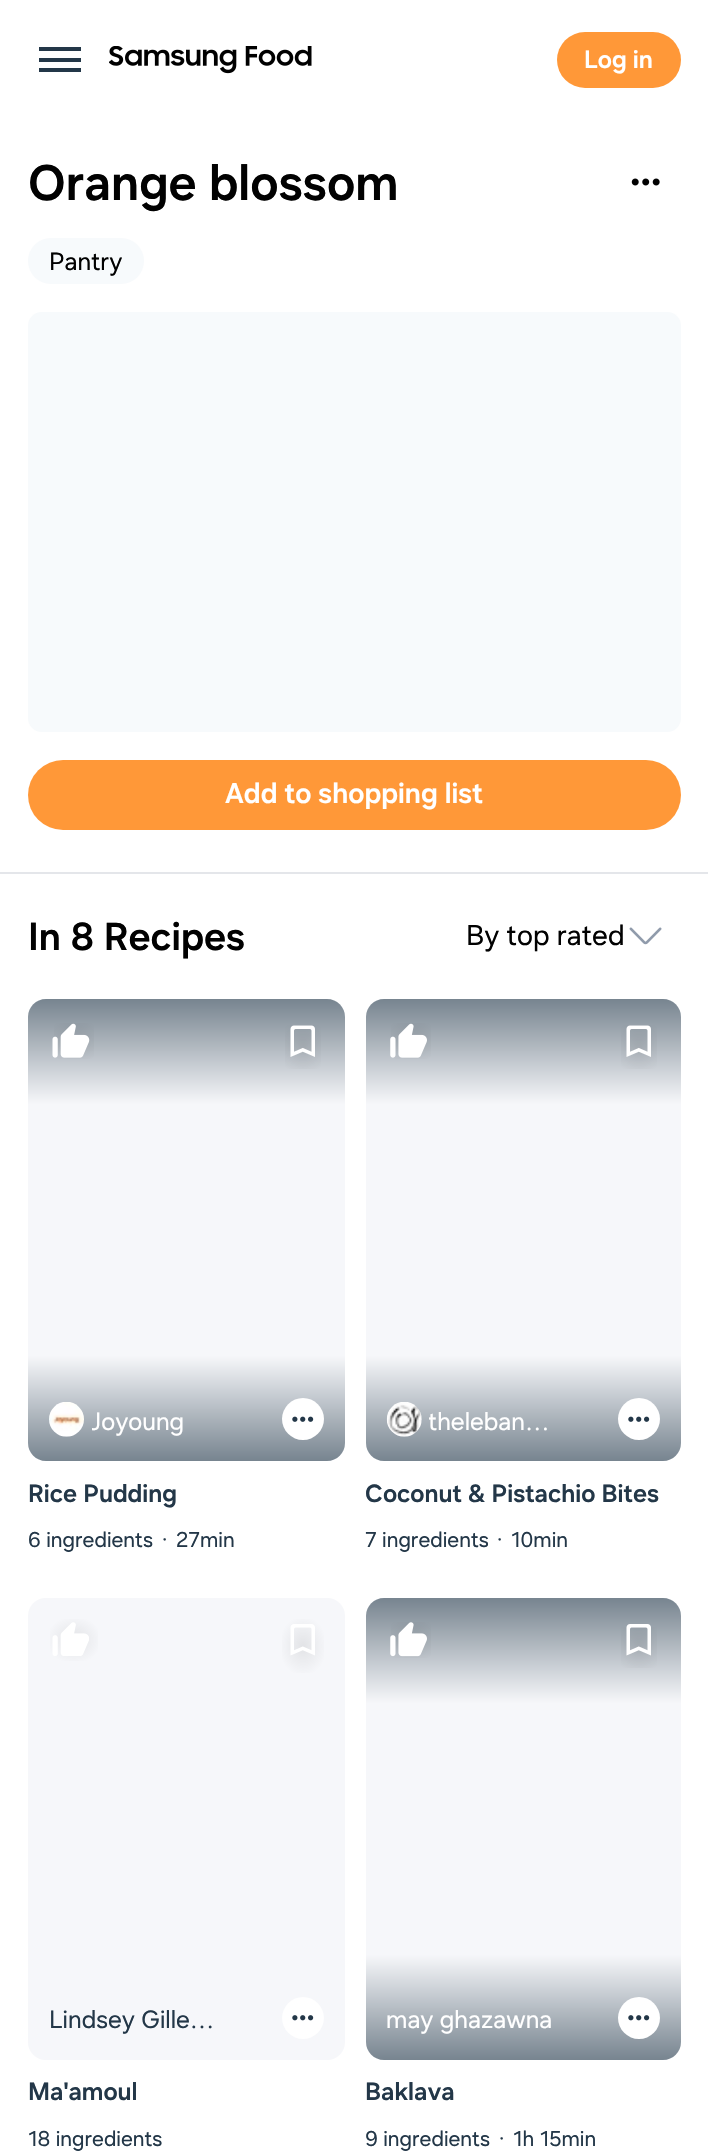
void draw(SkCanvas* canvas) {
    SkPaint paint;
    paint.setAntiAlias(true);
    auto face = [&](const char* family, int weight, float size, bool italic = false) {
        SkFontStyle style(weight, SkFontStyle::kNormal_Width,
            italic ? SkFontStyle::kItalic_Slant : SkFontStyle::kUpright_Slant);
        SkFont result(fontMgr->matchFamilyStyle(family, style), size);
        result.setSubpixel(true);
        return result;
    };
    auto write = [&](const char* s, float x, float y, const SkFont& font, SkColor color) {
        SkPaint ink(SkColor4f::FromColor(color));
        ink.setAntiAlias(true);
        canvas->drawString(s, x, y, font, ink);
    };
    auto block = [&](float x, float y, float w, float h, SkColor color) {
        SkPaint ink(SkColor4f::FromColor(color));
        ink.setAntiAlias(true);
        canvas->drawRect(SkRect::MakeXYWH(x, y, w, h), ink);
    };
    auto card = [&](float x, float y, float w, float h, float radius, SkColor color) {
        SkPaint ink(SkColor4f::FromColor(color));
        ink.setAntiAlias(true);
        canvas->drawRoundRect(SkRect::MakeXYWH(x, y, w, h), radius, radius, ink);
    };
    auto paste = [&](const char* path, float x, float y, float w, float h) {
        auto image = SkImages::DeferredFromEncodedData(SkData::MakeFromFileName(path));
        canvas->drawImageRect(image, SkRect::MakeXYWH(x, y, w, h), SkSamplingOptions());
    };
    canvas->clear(SK_ColorWHITE);
    block(39, 47, 42, 4, SkColorSetRGB(35, 55, 72));
    block(39, 58, 42, 4, SkColorSetRGB(35, 55, 72));
    block(39, 68, 42, 4, SkColorSetRGB(35, 55, 72));
    paste("pic1.png", 109, 46, 203, 28);
    card(557, 32, 124, 56, 28, SkColorSetRGB(255, 152, 56));
    auto kFont1 = face("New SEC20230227", 600, 24.5f);
    write("Log in", 584, 68, kFont1, SK_ColorWHITE);
    auto kFont2 = face("New SEC20230227", 600, 49);
    write("Orange blossom", 28, 200, kFont2, SkColorSetRGB(1, 1, 1));
    paste("pic2.png", 631, 178, 29, 8);
    block(0, 872, 708, 2, SkColorSetRGB(228, 230, 234));
    card(28, 238, 116, 46, 23, SkColorSetRGB(247, 250, 252));
    auto kFont3 = face("New SEC20230227", 400, 24.5f);
    write("Pantry", 49, 270, kFont3, SkColorSetRGB(1, 1, 1));
    card(28, 312, 653, 420, 14, SkColorSetRGB(247, 250, 252));
    card(28, 760, 653, 70, 35, SkColorSetRGB(255, 152, 56));
    auto kFont4 = face("New SEC20230227", 600, 28);
    write("Add to shopping list", 225, 803, kFont4, SK_ColorWHITE);
    auto kFont5 = face("New SEC20230227", 600, 38.5f);
    write("In 8 Recipes", 28, 950, kFont5, SkColorSetRGB(1, 1, 1));
    auto kFont6 = face("New SEC20230227", 400, 28);
    write("By top rated", 466, 945, kFont6, SkColorSetRGB(1, 1, 1));
    paste("pic3.png", 629, 927, 33, 18);
    card(28, 999, 317, 462, 18, SkColorSetRGB(246, 247, 250));
    {
        const SkColor colors[] = {SkColorSetRGB(246, 247, 250), SkColorSetRGB(119, 132, 143)};
        const float stops[] = {0, 1};
        const SkPoint ends[] = {{186, 1104}, {186, 999}};
        paint.setShader(SkGradientShader::MakeLinear(ends, colors, stops, 2, SkTileMode::kClamp));
        paint.setAlpha(255);
    }
    canvas->drawPath(SkPathBuilder().moveTo(46, 999).lineTo(327, 999).cubicTo(337, 999, 345, 1007, 345, 1017).lineTo(345, 1104).lineTo(28, 1104).lineTo(28, 1017).cubicTo(28, 1007, 36, 999, 46, 999).close().detach(), paint);
    {
        const SkColor colors[] = {SkColorSetRGB(246, 247, 250), SkColorSetRGB(119, 132, 143)};
        const float stops[] = {0, 1};
        const SkPoint ends[] = {{186, 1356}, {186, 1461}};
        paint.setShader(SkGradientShader::MakeLinear(ends, colors, stops, 2, SkTileMode::kClamp));
        paint.setAlpha(255);
    }
    canvas->drawPath(SkPathBuilder().moveTo(28, 1356).lineTo(345, 1356).lineTo(345, 1443).cubicTo(345, 1453, 337, 1461, 327, 1461).lineTo(46, 1461).cubicTo(36, 1461, 28, 1453, 28, 1443).close().detach(), paint);
    {
        const SkColor colors[] = {SkColorSetARGB(20, 0, 0, 0), SkColorSetARGB(0, 0, 0, 0)};
        const float stops[] = {0, 0.8f};
        SkMatrix m = SkMatrix::Translate(74, 1041).preScale(35, 30);
        paint.setShader(SkGradientShader::MakeRadial({0, 0}, 1, colors, stops, 2, SkTileMode::kClamp, 0, &m));
        paint.setAlpha(255);
    }
    canvas->drawRect(SkRect::MakeXYWH(54, 1023, 40, 36), paint);
    paste("pic4.png", 52, 1023, 38, 35);
    {
        const SkColor colors[] = {SkColorSetARGB(20, 0, 0, 0), SkColorSetARGB(0, 0, 0, 0)};
        const float stops[] = {0, 0.8f};
        SkMatrix m = SkMatrix::Translate(303, 1047).preScale(30, 38);
        paint.setShader(SkGradientShader::MakeRadial({0, 0}, 1, colors, stops, 2, SkTileMode::kClamp, 0, &m));
        paint.setAlpha(255);
    }
    canvas->drawRect(SkRect::MakeXYWH(285, 1025, 36, 44), paint);
    paste("pic5.png", 290, 1025, 25, 32);
    paste("pic6.png", 49, 1402, 35, 35);
    write("Joyoung", 91, 1430, kFont3, SK_ColorWHITE);
    paint.setShader(nullptr);
    paint.setColor(SK_ColorWHITE);
    canvas->drawCircle(303, 1419, 21, paint);
    paste("pic7.png", 292, 1416, 22, 6);
    write("Rice Pudding", 28, 1502, kFont1, SkColorSetRGB(35, 55, 72));
    auto kFont7 = face("New SEC20230227", 400, 21);
    write("6 ingredients", 28, 1547, kFont7, SkColorSetRGB(35, 55, 72));
    write("·", 162, 1547, kFont7, SkColorSetRGB(35, 55, 72));
    write("27min", 176, 1547, kFont7, SkColorSetRGB(35, 55, 72));
    card(366, 999, 315, 462, 18, SkColorSetRGB(246, 247, 250));
    {
        const SkColor colors[] = {SkColorSetRGB(246, 247, 250), SkColorSetRGB(119, 132, 143)};
        const float stops[] = {0, 1};
        const SkPoint ends[] = {{523, 1104}, {523, 999}};
        paint.setShader(SkGradientShader::MakeLinear(ends, colors, stops, 2, SkTileMode::kClamp));
        paint.setAlpha(255);
    }
    canvas->drawPath(SkPathBuilder().moveTo(384, 999).lineTo(663, 999).cubicTo(673, 999, 681, 1007, 681, 1017).lineTo(681, 1104).lineTo(366, 1104).lineTo(366, 1017).cubicTo(366, 1007, 374, 999, 384, 999).close().detach(), paint);
    {
        const SkColor colors[] = {SkColorSetRGB(246, 247, 250), SkColorSetRGB(119, 132, 143)};
        const float stops[] = {0, 1};
        const SkPoint ends[] = {{523, 1356}, {523, 1461}};
        paint.setShader(SkGradientShader::MakeLinear(ends, colors, stops, 2, SkTileMode::kClamp));
        paint.setAlpha(255);
    }
    canvas->drawPath(SkPathBuilder().moveTo(366, 1356).lineTo(681, 1356).lineTo(681, 1443).cubicTo(681, 1453, 673, 1461, 663, 1461).lineTo(384, 1461).cubicTo(374, 1461, 366, 1453, 366, 1443).close().detach(), paint);
    {
        const SkColor colors[] = {SkColorSetARGB(20, 0, 0, 0), SkColorSetARGB(0, 0, 0, 0)};
        const float stops[] = {0, 0.8f};
        SkMatrix m = SkMatrix::Translate(411, 1041).preScale(35, 30);
        paint.setShader(SkGradientShader::MakeRadial({0, 0}, 1, colors, stops, 2, SkTileMode::kClamp, 0, &m));
        paint.setAlpha(255);
    }
    canvas->drawRect(SkRect::MakeXYWH(391, 1023, 40, 36), paint);
    paste("pic8.png", 390, 1023, 37, 35);
    {
        const SkColor colors[] = {SkColorSetARGB(20, 0, 0, 0), SkColorSetARGB(0, 0, 0, 0)};
        const float stops[] = {0, 0.8f};
        SkMatrix m = SkMatrix::Translate(639, 1047).preScale(30, 38);
        paint.setShader(SkGradientShader::MakeRadial({0, 0}, 1, colors, stops, 2, SkTileMode::kClamp, 0, &m));
        paint.setAlpha(255);
    }
    canvas->drawRect(SkRect::MakeXYWH(621, 1025, 36, 44), paint);
    paste("pic5.png", 626, 1025, 25, 32);
    paste("pic9.png", 386, 1402, 36, 35);
    canvas->save();
    canvas->clipRect(SkRect::MakeXYWH(429, 1402, 129, 38));
    write("theleban…", 428, 1430, kFont3, SK_ColorWHITE);
    canvas->restore();
    paint.setShader(nullptr);
    paint.setColor(SK_ColorWHITE);
    canvas->drawCircle(639, 1419, 21, paint);
    paste("pic7.png", 628, 1416, 22, 6);
    write("Coconut & Pistachio Bites", 365, 1502, kFont1, SkColorSetRGB(35, 55, 72));
    write("7 ingredients", 365, 1547, kFont7, SkColorSetRGB(35, 55, 72));
    write("·", 497, 1547, kFont7, SkColorSetRGB(35, 55, 72));
    write("10min", 511, 1547, kFont7, SkColorSetRGB(35, 55, 72));
    card(28, 1598, 317, 462, 18, SkColorSetRGB(246, 247, 250));
    {
        const SkColor colors[] = {SkColorSetRGB(226, 227, 230), SkColorSetRGB(246, 247, 250)};
        const float stops[] = {0, 0.8f};
        SkMatrix m = SkMatrix::Translate(74, 1640).preScale(35, 30);
        paint.setShader(SkGradientShader::MakeRadial({0, 0}, 1, colors, stops, 2, SkTileMode::kClamp, 0, &m));
        paint.setAlpha(255);
    }
    canvas->drawRect(SkRect::MakeXYWH(50, 1619, 48, 42), paint);
    paste("pic10.png", 52, 1622, 37, 34);
    {
        const SkColor colors[] = {SkColorSetRGB(226, 227, 230), SkColorSetRGB(246, 247, 250)};
        const float stops[] = {0, 0.8f};
        SkMatrix m = SkMatrix::Translate(303, 1646).preScale(30, 38);
        paint.setShader(SkGradientShader::MakeRadial({0, 0}, 1, colors, stops, 2, SkTileMode::kClamp, 0, &m));
        paint.setAlpha(255);
    }
    canvas->drawRect(SkRect::MakeXYWH(282, 1619, 42, 54), paint);
    paste("pic11.png", 290, 1624, 25, 32);
    write("Lindsey Gille…", 49, 2028, kFont3, SkColorSetRGB(35, 55, 72));
    paint.setShader(nullptr);
    paint.setColor(SK_ColorWHITE);
    canvas->drawCircle(303, 2018, 21, paint);
    paste("pic12.png", 292, 2015, 22, 6);
    write("Ma'amoul", 28, 2100, kFont1, SkColorSetRGB(35, 55, 72));
    write("18 ingredients", 28, 2146, kFont7, SkColorSetRGB(35, 55, 72));
    card(366, 1598, 315, 462, 18, SkColorSetRGB(246, 247, 250));
    {
        const SkColor colors[] = {SkColorSetRGB(246, 247, 250), SkColorSetRGB(119, 132, 143)};
        const float stops[] = {0, 1};
        const SkPoint ends[] = {{523, 1703}, {523, 1598}};
        paint.setShader(SkGradientShader::MakeLinear(ends, colors, stops, 2, SkTileMode::kClamp));
        paint.setAlpha(255);
    }
    canvas->drawPath(SkPathBuilder().moveTo(384, 1598).lineTo(663, 1598).cubicTo(673, 1598, 681, 1606, 681, 1616).lineTo(681, 1703).lineTo(366, 1703).lineTo(366, 1616).cubicTo(366, 1606, 374, 1598, 384, 1598).close().detach(), paint);
    {
        const SkColor colors[] = {SkColorSetRGB(246, 247, 250), SkColorSetRGB(119, 132, 143)};
        const float stops[] = {0, 1};
        const SkPoint ends[] = {{523, 1955}, {523, 2060}};
        paint.setShader(SkGradientShader::MakeLinear(ends, colors, stops, 2, SkTileMode::kClamp));
        paint.setAlpha(255);
    }
    canvas->drawPath(SkPathBuilder().moveTo(366, 1955).lineTo(681, 1955).lineTo(681, 2042).cubicTo(681, 2052, 673, 2060, 663, 2060).lineTo(384, 2060).cubicTo(374, 2060, 366, 2052, 366, 2042).close().detach(), paint);
    {
        const SkColor colors[] = {SkColorSetARGB(20, 0, 0, 0), SkColorSetARGB(0, 0, 0, 0)};
        const float stops[] = {0, 0.8f};
        SkMatrix m = SkMatrix::Translate(411, 1640).preScale(35, 30);
        paint.setShader(SkGradientShader::MakeRadial({0, 0}, 1, colors, stops, 2, SkTileMode::kClamp, 0, &m));
        paint.setAlpha(255);
    }
    canvas->drawRect(SkRect::MakeXYWH(391, 1622, 40, 36), paint);
    paste("pic13.png", 390, 1622, 37, 35);
    {
        const SkColor colors[] = {SkColorSetARGB(20, 0, 0, 0), SkColorSetARGB(0, 0, 0, 0)};
        const float stops[] = {0, 0.8f};
        SkMatrix m = SkMatrix::Translate(639, 1646).preScale(30, 38);
        paint.setShader(SkGradientShader::MakeRadial({0, 0}, 1, colors, stops, 2, SkTileMode::kClamp, 0, &m));
        paint.setAlpha(255);
    }
    canvas->drawRect(SkRect::MakeXYWH(621, 1627, 36, 41), paint);
    paste("pic14.png", 626, 1624, 25, 32);
    write("may ghazawna", 386, 2028, kFont3, SK_ColorWHITE);
    paint.setShader(nullptr);
    paint.setColor(SK_ColorWHITE);
    canvas->drawCircle(639, 2018, 21, paint);
    paste("pic12.png", 628, 2015, 22, 6);
    write("Baklava", 365, 2100, kFont1, SkColorSetRGB(35, 55, 72));
    write("9 ingredients", 365, 2146, kFont7, SkColorSetRGB(35, 55, 72));
    write("·", 499, 2146, kFont7, SkColorSetRGB(35, 55, 72));
    write("1h 15min", 513, 2146, kFont7, SkColorSetRGB(35, 55, 72));
}
